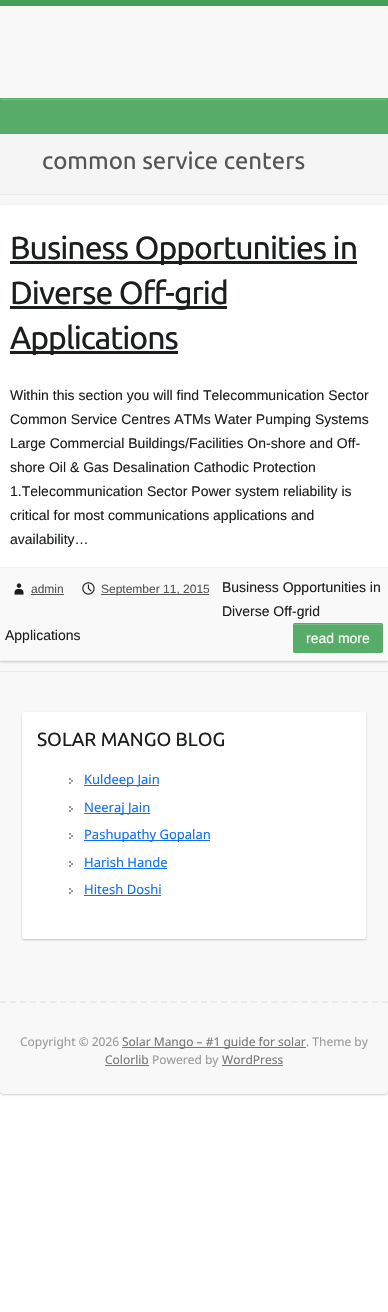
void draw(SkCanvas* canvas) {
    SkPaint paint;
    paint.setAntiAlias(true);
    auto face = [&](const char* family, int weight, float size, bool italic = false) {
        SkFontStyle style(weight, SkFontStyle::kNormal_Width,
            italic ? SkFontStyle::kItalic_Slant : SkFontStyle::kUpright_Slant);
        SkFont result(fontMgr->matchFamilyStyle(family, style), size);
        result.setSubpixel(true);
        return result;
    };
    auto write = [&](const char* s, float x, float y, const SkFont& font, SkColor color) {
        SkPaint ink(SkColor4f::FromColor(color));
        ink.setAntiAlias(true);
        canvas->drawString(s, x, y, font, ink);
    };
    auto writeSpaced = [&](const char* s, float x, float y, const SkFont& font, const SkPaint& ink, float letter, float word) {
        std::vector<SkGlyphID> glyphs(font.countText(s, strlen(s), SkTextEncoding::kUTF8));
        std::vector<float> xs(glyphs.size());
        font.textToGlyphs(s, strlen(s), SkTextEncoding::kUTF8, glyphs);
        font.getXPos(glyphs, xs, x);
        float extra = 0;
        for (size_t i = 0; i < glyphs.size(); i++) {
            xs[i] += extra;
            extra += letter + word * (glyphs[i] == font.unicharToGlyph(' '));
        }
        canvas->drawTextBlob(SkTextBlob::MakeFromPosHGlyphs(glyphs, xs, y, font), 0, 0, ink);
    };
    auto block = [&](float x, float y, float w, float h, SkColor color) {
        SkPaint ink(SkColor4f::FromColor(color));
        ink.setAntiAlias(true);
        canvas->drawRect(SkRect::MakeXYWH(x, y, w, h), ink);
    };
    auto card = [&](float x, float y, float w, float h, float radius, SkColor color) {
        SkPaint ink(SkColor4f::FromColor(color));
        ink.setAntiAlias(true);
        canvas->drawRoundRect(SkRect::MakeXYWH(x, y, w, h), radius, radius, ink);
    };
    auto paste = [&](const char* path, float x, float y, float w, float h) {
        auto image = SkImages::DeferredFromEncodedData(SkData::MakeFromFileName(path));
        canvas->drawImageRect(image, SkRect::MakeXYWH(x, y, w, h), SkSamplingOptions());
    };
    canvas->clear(SK_ColorWHITE);
    block(0, 0, 388, 6, SkColorSetRGB(67, 159, 85));
    paint.setColor(SkColorSetARGB(51, 0, 0, 0));
    paint.setMaskFilter(SkMaskFilter::MakeBlur(kNormal_SkBlurStyle, 1));
    canvas->drawRoundRect(SkRect::MakeXYWH(0, 7, 388, 1088), 4, 4, paint);
    paint.setMaskFilter(nullptr);
    card(0, 6, 388, 1088, 4, SkColorSetRGB(248, 248, 248));
    block(0, 98, 388, 36, SkColorSetRGB(87, 173, 104));
    block(1, 99, 386, 1, SkColorSetRGB(121, 189, 134));
    block(0, 134, 388, 60, SkColorSetRGB(245, 245, 245));
    block(0, 194, 388, 1, SkColorSetRGB(234, 234, 234));
    auto kFont1 = face("Ubuntu", 400, 24);
    write("common service centers", 42, 169, kFont1, SkColorSetRGB(85, 85, 85));
    paint.setMaskFilter(SkMaskFilter::MakeBlur(kNormal_SkBlurStyle, 1));
    canvas->drawRect(SkRect::MakeXYWH(0, 206, 388, 456), paint);
    paint.setMaskFilter(nullptr);
    block(0, 205, 388, 362, SK_ColorWHITE);
    block(10, 261, 347, 3, SkColorSetRGB(27, 30, 31));
    auto kFont2 = face("Ubuntu", 400, 32);
    paint.setColor(SkColorSetRGB(27, 30, 31));
    writeSpaced("Business Opportunities in", 10, 259, kFont2, paint, -1, 0);
    block(10, 306, 217, 3, SkColorSetRGB(27, 30, 31));
    writeSpaced("Diverse Off-grid", 10, 304, kFont2, paint, -1, 0);
    block(10, 351, 168, 3, SkColorSetRGB(27, 30, 31));
    writeSpaced("Applications", 10, 349, kFont2, paint, -1, 0);
    auto kFont3 = face("Liberation Sans", 400, 14);
    write("Within this section you will find Telecommunication Sector", 10, 400, kFont3, SkColorSetRGB(27, 30, 31));
    write("Common Service Centres ATMs Water Pumping Systems", 10, 424, kFont3, SkColorSetRGB(27, 30, 31));
    write("Large Commercial Buildings/Facilities On-shore and Off-", 10, 448, kFont3, SkColorSetRGB(27, 30, 31));
    write("shore Oil & Gas Desalination Cathodic Protection", 10, 472, kFont3, SkColorSetRGB(27, 30, 31));
    write("1.Telecommunication Sector Power system reliability is", 10, 496, kFont3, SkColorSetRGB(27, 30, 31));
    write("critical for most communications applications and", 10, 520, kFont3, SkColorSetRGB(27, 30, 31));
    write("availability…", 10, 544, kFont3, SkColorSetRGB(27, 30, 31));
    block(0, 568, 388, 92, SkColorSetRGB(249, 249, 249));
    block(0, 567, 388, 1, SkColorSetRGB(240, 240, 240));
    block(0, 660, 388, 1, SkColorSetRGB(240, 240, 240));
    paste("pic1.png", 14, 583, 10, 12);
    auto kFont4 = face("Liberation Sans", 400, 12);
    write("admin", 31, 593, kFont4, SkColorSetRGB(85, 85, 85));
    block(31, 594, 33, 1, SkColorSetRGB(85, 85, 85));
    paste("pic2.png", 82, 582, 13, 13);
    block(101, 594, 108, 1, SkColorSetRGB(85, 85, 85));
    write("September 11, 2015", 101, 593, kFont4, SkColorSetRGB(85, 85, 85));
    write("Business Opportunities in", 222, 592, kFont3, SkColorSetRGB(27, 30, 31));
    write("Diverse Off-grid", 222, 616, kFont3, SkColorSetRGB(27, 30, 31));
    write("Applications", 5, 640, kFont3, SkColorSetRGB(27, 30, 31));
    card(293, 623, 90, 30, 2, SkColorSetRGB(87, 173, 104));
    paint.setColor(SkColorSetRGB(121, 189, 134));
    canvas->drawPath(SkPathBuilder().moveTo(295, 625).lineTo(381, 625).cubicTo(382, 625, 382, 625, 382, 626).cubicTo(382, 625, 382, 624, 381, 624).lineTo(295, 624).cubicTo(294, 624, 294, 625, 294, 626).cubicTo(294, 625, 294, 625, 295, 625).close().detach(), paint);
    paint.setStyle(SkPaint::kStroke_Style);
    paint.setStrokeWidth(1);
    paint.setColor(SkColorSetRGB(87, 173, 104));
    canvas->drawRoundRect(SkRect::MakeXYWH(293.5f, 623.5f, 89, 29), 1.5f, 1.5f, paint);
    write("read more", 306, 643, kFont3, SK_ColorWHITE);
    block(0, 671, 388, 1, SkColorSetRGB(234, 234, 234));
    paint.setStyle(SkPaint::kFill_Style);
    paint.setColor(SkColorSetARGB(51, 0, 0, 0));
    paint.setMaskFilter(SkMaskFilter::MakeBlur(kNormal_SkBlurStyle, 1));
    canvas->drawRoundRect(SkRect::MakeXYWH(22, 713, 344, 227), 2, 2, paint);
    paint.setMaskFilter(nullptr);
    card(22, 712, 344, 227, 2, SK_ColorWHITE);
    auto kFont5 = face("Ubuntu", 400, 19);
    write("SOLAR MANGO BLOG", 37, 746, kFont5, SkColorSetRGB(27, 30, 31));
    paste("pic3.png", 69, 778, 4, 6);
    block(84, 785, 75, 1, SkColorSetRGB(13, 110, 253));
    auto kFont6 = face("Noto Sans", 400, 13);
    write("Kuldeep Jain", 84, 784, kFont6, SkColorSetRGB(13, 110, 253));
    paste("pic3.png", 69, 806, 4, 6);
    block(84, 813, 66, 1, SkColorSetRGB(13, 110, 253));
    write("Neeraj Jain", 84, 812, kFont6, SkColorSetRGB(13, 110, 253));
    paste("pic3.png", 69, 833, 4, 6);
    block(84, 840, 126, 1, SkColorSetRGB(13, 110, 253));
    write("Pashupathy Gopalan", 84, 839, kFont6, SkColorSetRGB(13, 110, 253));
    paste("pic3.png", 69, 861, 4, 6);
    write("Harish Hande", 84, 867, kFont6, SkColorSetRGB(13, 110, 253));
    block(84, 868, 83, 1, SkColorSetRGB(13, 110, 253));
    paste("pic3.png", 69, 888, 4, 6);
    write("Hitesh Doshi", 84, 894, kFont6, SkColorSetRGB(13, 110, 253));
    block(84, 895, 77, 1, SkColorSetRGB(13, 110, 253));
    paint.setStyle(SkPaint::kStroke_Style);
    paint.setStrokeWidth(2);
    paint.setColor(SkColorSetRGB(234, 234, 234));
    paint.setPathEffect(SkDashPathEffect::Make({{6, 4.05f}}, 0));
    canvas->drawPath(SkPathBuilder().moveTo(0, 1002).lineTo(388, 1002).detach(), paint);
    paint.setPathEffect(nullptr);
    auto kFont7 = face("Noto Sans", 400, 12);
    write("Copyright © 2026", 20, 1046, kFont7, SkColorSetRGB(153, 153, 153));
    block(122, 1047, 184, 1, SkColorSetRGB(119, 119, 119));
    write("Solar Mango – #1 guide for solar", 122, 1046, kFont7, SkColorSetRGB(119, 119, 119));
    write(". Theme by", 306, 1046, kFont7, SkColorSetRGB(153, 153, 153));
    write("Colorlib", 105, 1064, kFont7, SkColorSetRGB(119, 119, 119));
    block(105, 1065, 44, 1, SkColorSetRGB(119, 119, 119));
    write("Powered by", 152, 1064, kFont7, SkColorSetRGB(153, 153, 153));
    write("WordPress", 222, 1064, kFont7, SkColorSetRGB(119, 119, 119));
    block(222, 1065, 61, 1, SkColorSetRGB(119, 119, 119));
}
